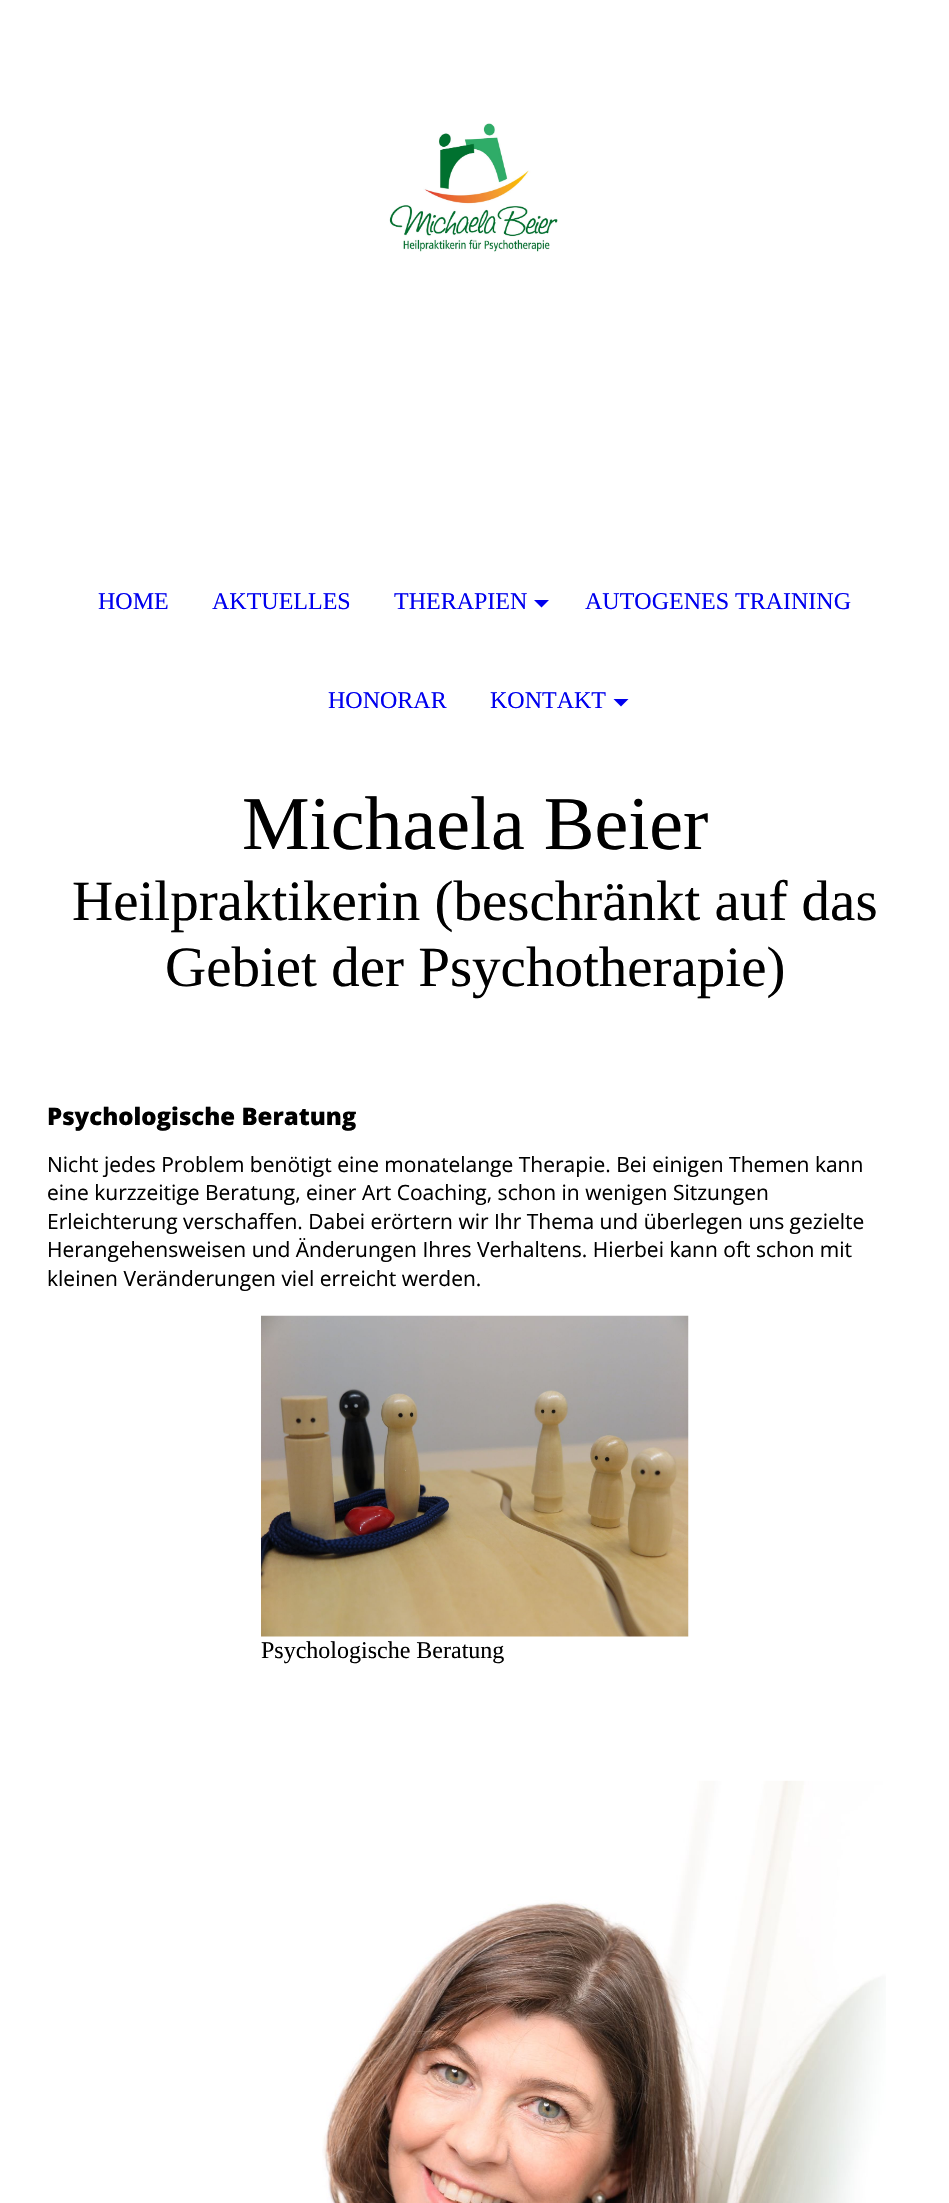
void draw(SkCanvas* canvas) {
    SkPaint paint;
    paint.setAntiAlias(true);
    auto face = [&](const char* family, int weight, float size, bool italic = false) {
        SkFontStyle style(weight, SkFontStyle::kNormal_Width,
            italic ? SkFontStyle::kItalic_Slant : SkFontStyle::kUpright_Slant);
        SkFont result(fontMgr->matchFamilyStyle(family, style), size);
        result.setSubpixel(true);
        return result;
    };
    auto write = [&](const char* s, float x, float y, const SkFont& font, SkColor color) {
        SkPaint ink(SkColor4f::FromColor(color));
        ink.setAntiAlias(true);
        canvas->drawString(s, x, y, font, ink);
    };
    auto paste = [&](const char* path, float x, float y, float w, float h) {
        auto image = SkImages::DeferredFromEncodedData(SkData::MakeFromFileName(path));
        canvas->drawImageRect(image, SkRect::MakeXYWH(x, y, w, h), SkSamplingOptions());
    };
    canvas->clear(SK_ColorWHITE);
    paste("pic1.png", 389, 123, 169, 129);
    auto kFont1 = face("Liberation Serif", 400, 24);
    write("HOME", 98, 609, kFont1, SkColorSetRGB(0, 0, 238));
    write("AKTUELLES", 212, 609, kFont1, SkColorSetRGB(0, 0, 238));
    write("THERAPIEN", 394, 609, kFont1, SkColorSetRGB(0, 0, 238));
    paint.setColor(SkColorSetRGB(0, 0, 238));
    canvas->drawPath(SkPathBuilder().moveTo(534, 600).lineTo(549, 600).lineTo(541.5f, 607.5f).close().detach(), paint);
    write("AUTOGENES TRAINING", 585, 609, kFont1, SkColorSetRGB(0, 0, 238));
    write("HONORAR", 328, 708, kFont1, SkColorSetRGB(0, 0, 238));
    write("KONTAKT", 490, 708, kFont1, SkColorSetRGB(0, 0, 238));
    canvas->drawPath(SkPathBuilder().moveTo(613.5f, 699).lineTo(628.5f, 699).lineTo(621, 706.5f).close().detach(), paint);
    auto kFont2 = face("Liberation Serif", 400, 76);
    write("Michaela Beier", 242, 849, kFont2, SK_ColorBLACK);
    auto kFont3 = face("Liberation Serif", 400, 57);
    write("Heilpraktikerin (beschränkt auf das", 72, 920, kFont3, SK_ColorBLACK);
    write("Gebiet der Psychotherapie)", 165, 986, kFont3, SK_ColorBLACK);
    auto kFont4 = face("Open Sans", 800, 24);
    write("Psychologische Beratung", 47, 1125, kFont4, SK_ColorBLACK);
    auto kFont5 = face("Open Sans", 400, 21);
    write("Nicht jedes Problem benötigt eine monatelange Therapie. Bei einigen Themen kann", 47, 1172, kFont5, SK_ColorBLACK);
    write("eine kurzzeitige Beratung, einer Art Coaching, schon in wenigen Sitzungen", 47, 1200, kFont5, SK_ColorBLACK);
    write("Erleichterung verschaffen. Dabei erörtern wir Ihr Thema und überlegen uns gezielte", 47, 1229, kFont5, SK_ColorBLACK);
    write("Herangehensweisen und Änderungen Ihres Verhaltens. Hierbei kann oft schon mit", 47, 1257, kFont5, SK_ColorBLACK);
    write("kleinen Veränderungen viel erreicht werden.", 47, 1286, kFont5, SK_ColorBLACK);
    paste("pic2.png", 261, 1315, 428, 322);
    write("Psychologische Beratung", 261, 1658, kFont1, SK_ColorBLACK);
    paste("pic3.png", 322, 1780, 564, 423);
}
